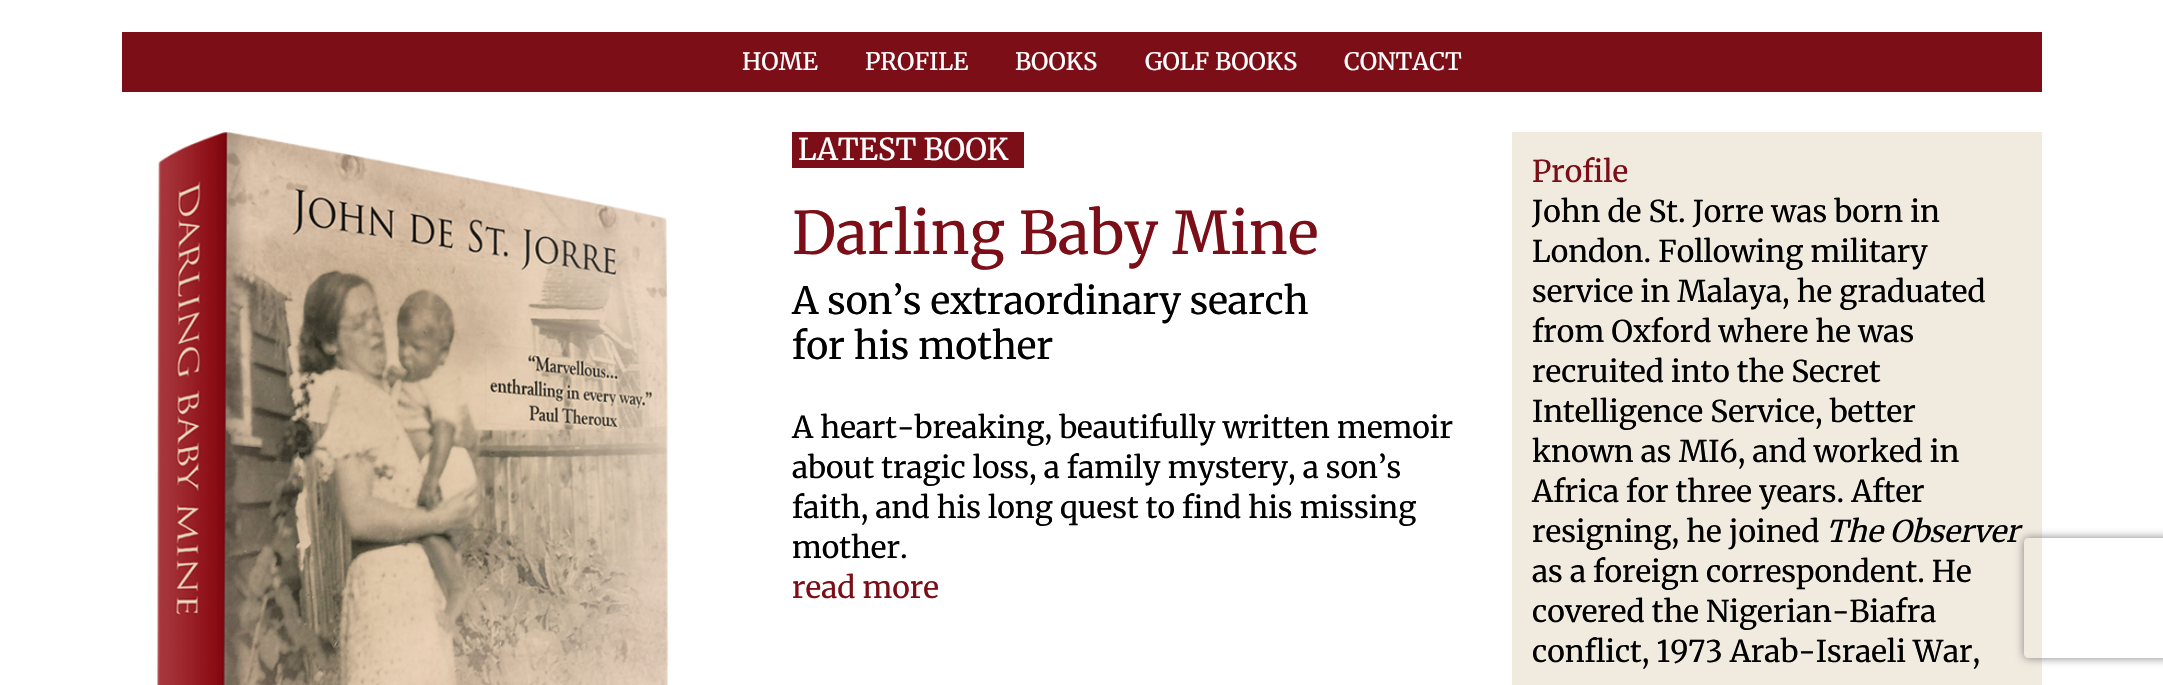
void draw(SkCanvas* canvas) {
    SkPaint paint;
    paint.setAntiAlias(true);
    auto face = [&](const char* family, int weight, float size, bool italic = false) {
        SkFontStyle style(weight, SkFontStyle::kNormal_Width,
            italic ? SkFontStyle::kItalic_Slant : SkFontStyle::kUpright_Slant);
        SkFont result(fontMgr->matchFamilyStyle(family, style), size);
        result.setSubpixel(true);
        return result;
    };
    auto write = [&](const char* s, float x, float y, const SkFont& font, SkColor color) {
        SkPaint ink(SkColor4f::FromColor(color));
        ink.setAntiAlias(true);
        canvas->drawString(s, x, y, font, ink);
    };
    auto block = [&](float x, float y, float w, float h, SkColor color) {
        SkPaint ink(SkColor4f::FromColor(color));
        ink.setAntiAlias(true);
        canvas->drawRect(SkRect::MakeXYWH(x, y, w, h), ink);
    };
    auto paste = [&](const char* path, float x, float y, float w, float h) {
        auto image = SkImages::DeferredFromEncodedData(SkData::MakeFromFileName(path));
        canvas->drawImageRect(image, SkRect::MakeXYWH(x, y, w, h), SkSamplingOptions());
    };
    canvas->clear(SK_ColorWHITE);
    block(122, 32, 1920, 60, SkColorSetRGB(123, 14, 22));
    auto kFont1 = face("Merriweather", 300, 24);
    write("HOME", 742, 70, kFont1, SK_ColorWHITE);
    write("PROFILE", 865, 70, kFont1, SK_ColorWHITE);
    write("BOOKS", 1015, 70, kFont1, SK_ColorWHITE);
    write("GOLF BOOKS", 1145, 70, kFont1, SK_ColorWHITE);
    write("CONTACT", 1344, 70, kFont1, SK_ColorWHITE);
    paste("pic1.png", 157, 132, 512, 553);
    block(792, 132, 232, 36, SkColorSetRGB(123, 14, 22));
    auto kFont2 = face("Merriweather", 300, 30);
    write("LATEST BOOK", 798, 160, kFont2, SK_ColorWHITE);
    auto kFont3 = face("Merriweather", 300, 58.5f);
    write("Darling Baby Mine", 792, 254, kFont3, SkColorSetRGB(123, 14, 22));
    auto kFont4 = face("Merriweather", 300, 37.5f);
    write("A son’s extraordinary search", 792, 314, kFont4, SK_ColorBLACK);
    write("for his mother", 792, 359, kFont4, SK_ColorBLACK);
    write("A heart-breaking, beautifully written memoir", 792, 438, kFont2, SK_ColorBLACK);
    write("about tragic loss, a family mystery, a son’s", 792, 478, kFont2, SK_ColorBLACK);
    write("faith, and his long quest to find his missing", 792, 518, kFont2, SK_ColorBLACK);
    write("mother.", 792, 558, kFont2, SK_ColorBLACK);
    write("read more", 792, 598, kFont2, SkColorSetRGB(123, 14, 22));
    block(1512, 132, 530, 553, SkColorSetRGB(241, 235, 223));
    write("Profile", 1532, 182, kFont2, SkColorSetRGB(123, 14, 22));
    write("John de St. Jorre was born in", 1532, 222, kFont2, SK_ColorBLACK);
    write("London. Following military", 1532, 262, kFont2, SK_ColorBLACK);
    write("service in Malaya, he graduated", 1532, 302, kFont2, SK_ColorBLACK);
    write("from Oxford where he was", 1532, 342, kFont2, SK_ColorBLACK);
    write("recruited into the Secret", 1532, 382, kFont2, SK_ColorBLACK);
    write("Intelligence Service, better", 1532, 422, kFont2, SK_ColorBLACK);
    write("known as MI6, and worked in", 1532, 462, kFont2, SK_ColorBLACK);
    write("Africa for three years. After", 1532, 502, kFont2, SK_ColorBLACK);
    write("resigning, he joined", 1532, 542, kFont2, SK_ColorBLACK);
    auto kFont5 = face("Merriweather", 300, 30, true);
    write("The Observer", 1826, 542, kFont5, SK_ColorBLACK);
    write("as a foreign correspondent. He", 1532, 582, kFont2, SK_ColorBLACK);
    write("covered the Nigerian-Biafra", 1532, 622, kFont2, SK_ColorBLACK);
    write("conflict, 1973 Arab-Israeli War,", 1532, 662, kFont2, SK_ColorBLACK);
    canvas->save();
    canvas->clipPath(SkPathBuilder(SkPathFillType::kEvenOdd).moveTo(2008, 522).lineTo(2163, 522).lineTo(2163, 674).lineTo(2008, 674).close().moveTo(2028, 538).lineTo(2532, 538).cubicTo(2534, 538, 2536, 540, 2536, 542).lineTo(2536, 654).cubicTo(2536, 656, 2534, 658, 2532, 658).lineTo(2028, 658).cubicTo(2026, 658, 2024, 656, 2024, 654).lineTo(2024, 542).cubicTo(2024, 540, 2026, 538, 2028, 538).close().detach(), true);
    paint.setColor(SkColorSetRGB(128, 128, 128));
    paint.setMaskFilter(SkMaskFilter::MakeBlur(kNormal_SkBlurStyle, 5));
    canvas->drawRoundRect(SkRect::MakeXYWH(2024, 538, 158, 120), 4, 4, paint);
    paint.setMaskFilter(nullptr);
    canvas->restore();
}
